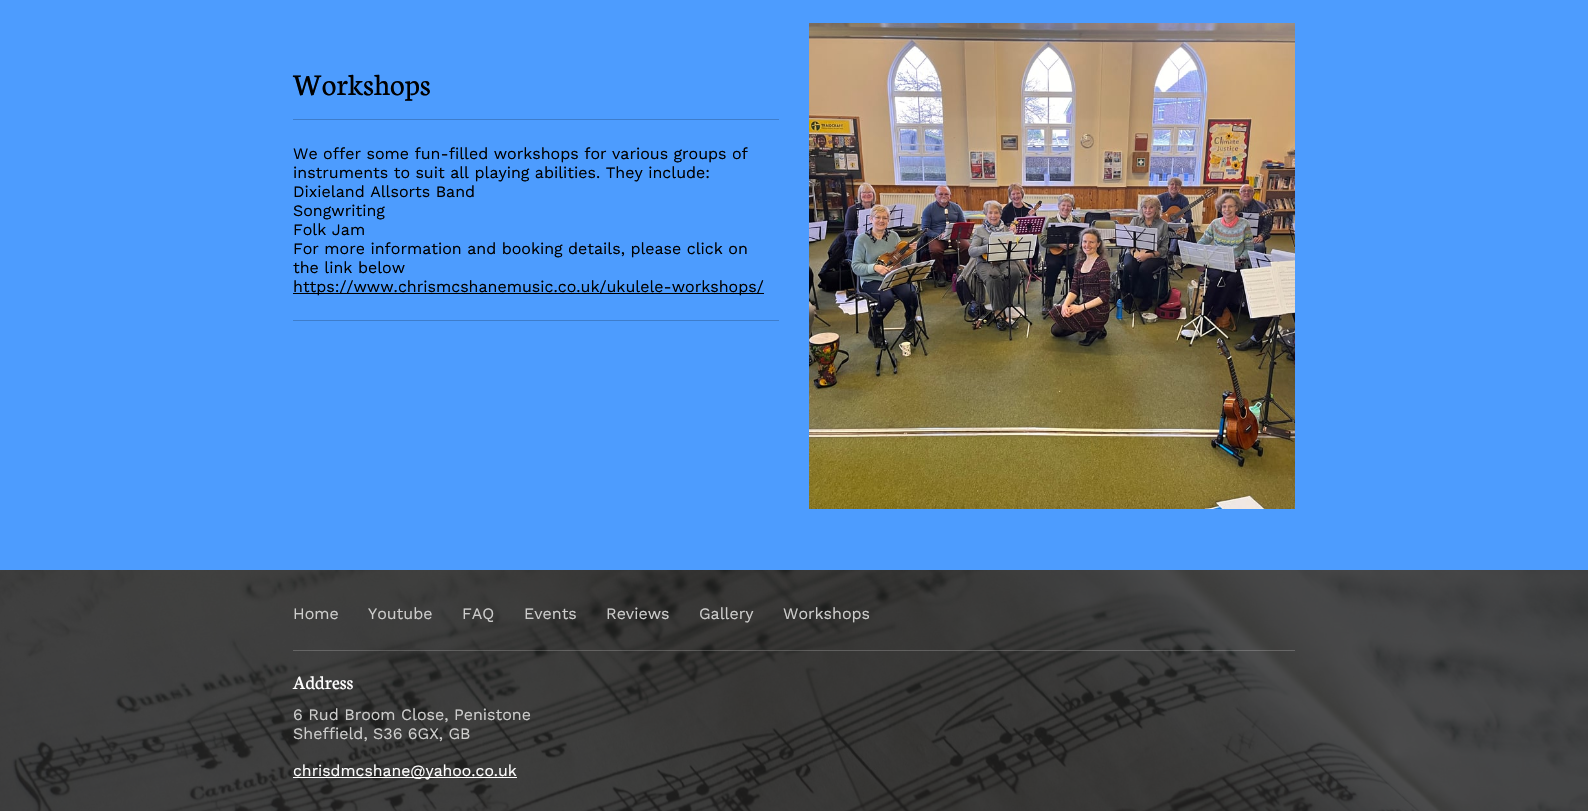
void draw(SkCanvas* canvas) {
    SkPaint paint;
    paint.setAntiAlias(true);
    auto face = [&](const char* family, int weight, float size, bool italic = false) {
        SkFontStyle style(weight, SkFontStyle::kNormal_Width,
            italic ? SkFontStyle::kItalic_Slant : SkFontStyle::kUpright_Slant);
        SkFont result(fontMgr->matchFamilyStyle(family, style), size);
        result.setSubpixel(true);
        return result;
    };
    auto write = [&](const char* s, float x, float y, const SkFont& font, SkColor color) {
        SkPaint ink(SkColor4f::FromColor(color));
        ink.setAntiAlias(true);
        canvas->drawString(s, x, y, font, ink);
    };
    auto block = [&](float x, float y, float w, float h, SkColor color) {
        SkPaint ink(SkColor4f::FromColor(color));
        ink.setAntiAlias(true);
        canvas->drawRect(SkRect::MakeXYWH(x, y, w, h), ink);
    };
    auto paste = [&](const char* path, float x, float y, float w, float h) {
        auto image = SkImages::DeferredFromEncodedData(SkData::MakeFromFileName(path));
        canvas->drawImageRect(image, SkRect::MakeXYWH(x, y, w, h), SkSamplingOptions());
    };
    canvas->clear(SkColorSetRGB(77, 156, 254));
    auto kFont1 = face("Neuton", 400, 32);
    write("Workshops", 293, 95, kFont1, SK_ColorBLACK);
    block(293, 119, 486, 1, SkColorSetRGB(62, 125, 203));
    auto kFont2 = face("Work Sans", 400, 16);
    write("We offer some fun-filled workshops for various groups of", 293, 159, kFont2, SK_ColorBLACK);
    write("instruments to suit all playing abilities. They include:", 293, 178, kFont2, SK_ColorBLACK);
    write("Dixieland Allsorts Band", 293, 197, kFont2, SK_ColorBLACK);
    write("Songwriting", 293, 216, kFont2, SK_ColorBLACK);
    write("Folk Jam", 293, 235, kFont2, SK_ColorBLACK);
    write("For more information and booking details, please click on", 293, 254, kFont2, SK_ColorBLACK);
    write("the link below", 293, 273, kFont2, SK_ColorBLACK);
    block(293, 293, 471, 1, SK_ColorBLACK);
    write("https://www.chrismcshanemusic.co.uk/ukulele-workshops/", 293, 292, kFont2, SK_ColorBLACK);
    block(293, 320, 486, 1, SkColorSetRGB(62, 125, 203));
    paste("pic1.png", 809, 23, 486, 486);
    block(0, 570, 1588, 241, SkColorSetRGB(33, 33, 33));
    paste("pic2.png", 0, 570, 1588, 241);
    write("Home", 293, 619, kFont2, SkColorSetRGB(205, 205, 204));
    write("Youtube", 368, 619, kFont2, SkColorSetRGB(205, 205, 204));
    write("FAQ", 462, 619, kFont2, SkColorSetRGB(205, 205, 204));
    write("Events", 524, 619, kFont2, SkColorSetRGB(205, 205, 204));
    write("Reviews", 606, 619, kFont2, SkColorSetRGB(205, 205, 204));
    write("Gallery", 699, 619, kFont2, SkColorSetRGB(205, 205, 204));
    write("Workshops", 783, 619, kFont2, SkColorSetRGB(205, 205, 204));
    block(293, 650, 1002, 1, SkColorSetARGB(51, 255, 255, 255));
    auto kFont3 = face("Neuton", 400, 20);
    write("Address", 293, 689, kFont3, SK_ColorWHITE);
    write("6 Rud Broom Close, Penistone", 293, 720, kFont2, SkColorSetRGB(205, 205, 204));
    write("Sheffield, S36 6GX, GB", 293, 739, kFont2, SkColorSetRGB(205, 205, 204));
    block(293, 777, 224, 1, SK_ColorWHITE);
    auto kFont4 = face("Work Sans", 400, 15.8f);
    write("chrisdmcshane@yahoo.co.uk", 293, 776, kFont4, SK_ColorWHITE);
}
